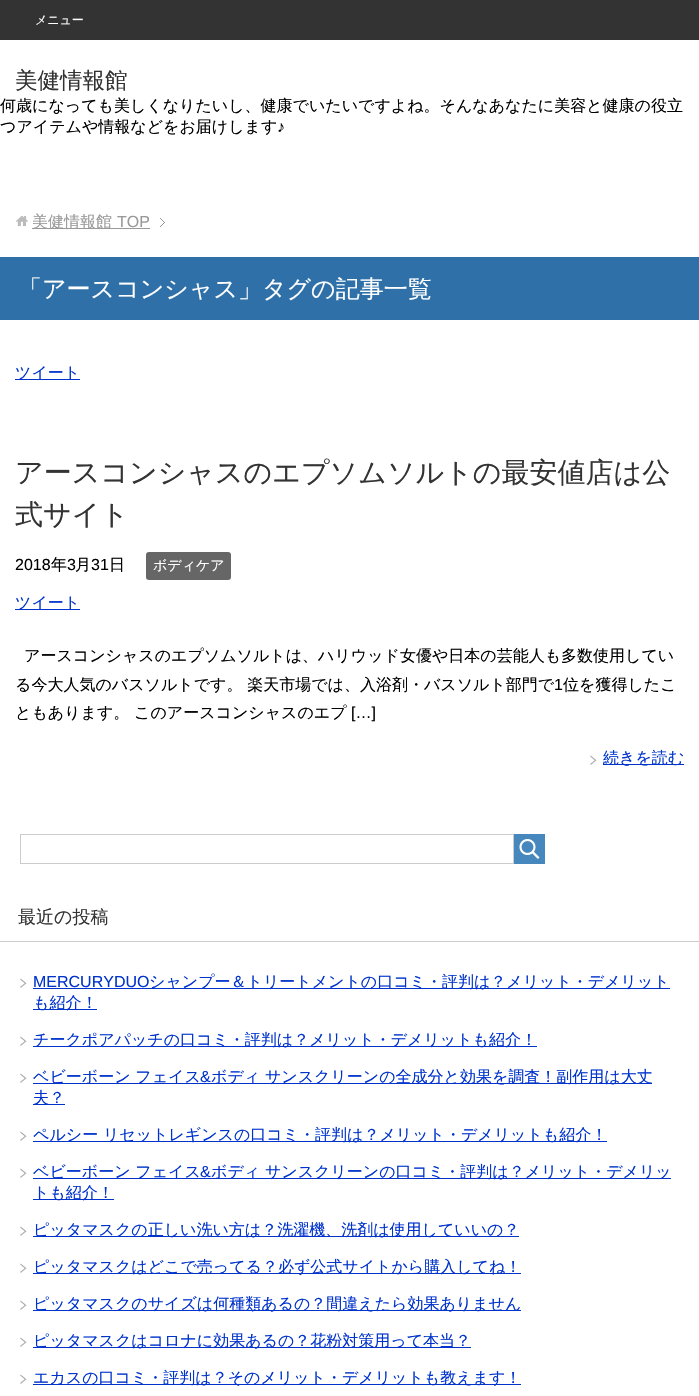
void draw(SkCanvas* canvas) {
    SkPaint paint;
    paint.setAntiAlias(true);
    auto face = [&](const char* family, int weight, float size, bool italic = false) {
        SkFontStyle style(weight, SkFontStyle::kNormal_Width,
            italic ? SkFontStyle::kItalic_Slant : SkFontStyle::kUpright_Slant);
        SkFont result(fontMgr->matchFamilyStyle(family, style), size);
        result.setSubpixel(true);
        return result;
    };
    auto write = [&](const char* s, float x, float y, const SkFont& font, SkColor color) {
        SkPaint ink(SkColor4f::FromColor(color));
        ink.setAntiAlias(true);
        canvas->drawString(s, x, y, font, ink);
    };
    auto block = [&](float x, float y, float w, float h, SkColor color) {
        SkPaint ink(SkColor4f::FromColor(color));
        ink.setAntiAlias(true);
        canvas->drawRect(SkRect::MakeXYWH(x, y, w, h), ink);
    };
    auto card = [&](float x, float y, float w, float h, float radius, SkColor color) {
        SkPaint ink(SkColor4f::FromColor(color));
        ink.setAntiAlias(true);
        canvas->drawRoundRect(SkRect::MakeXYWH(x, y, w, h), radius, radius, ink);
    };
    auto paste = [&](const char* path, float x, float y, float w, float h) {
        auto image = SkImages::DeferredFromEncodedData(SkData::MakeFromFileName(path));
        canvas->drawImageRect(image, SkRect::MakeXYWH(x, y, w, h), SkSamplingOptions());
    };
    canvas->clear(SK_ColorWHITE);
    block(0, 0, 699, 40, SkColorSetRGB(51, 51, 51));
    auto kFont1 = face("WenQuanYi Zen Hei", 500, 12);
    write("メニュー", 35, 24, kFont1, SK_ColorWHITE);
    auto kFont2 = face("WenQuanYi Zen Hei", 500, 22.5f);
    write("美健情報館", 15, 88, kFont2, SkColorSetRGB(51, 51, 51));
    auto kFont3 = face("WenQuanYi Zen Hei", 500, 16);
    write("何歳になっても美しくなりたいし、健康でいたいですよね。そんなあなたに美容と健康の役立", 0, 111, kFont3, SK_ColorBLACK);
    write("つアイテムや情報などをお届けします", 0, 132, kFont3, SK_ColorBLACK);
    auto kFont4 = face("Liberation Sans", 400, 16);
    write("♪", 277, 132, kFont4, SK_ColorBLACK);
    paste("pic1.png", 160, 218, 5, 9);
    paste("pic2.png", 16, 216, 12, 11);
    block(32, 228, 118, 1, SkColorSetRGB(153, 153, 153));
    write("美健情報館", 32, 227, kFont3, SkColorSetRGB(153, 153, 153));
    write("TOP", 117, 227, kFont4, SkColorSetRGB(153, 153, 153));
    block(0, 257, 699, 63, SkColorSetRGB(46, 112, 167));
    auto kFont5 = face("WenQuanYi Zen Hei", 500, 24);
    write("「アースコンシャス」タグの記事一覧", 18, 297, kFont5, SK_ColorWHITE);
    block(15, 379, 65, 1, SkColorSetRGB(0, 51, 204));
    write("ツイート", 15, 378, kFont3, SkColorSetRGB(0, 51, 204));
    auto kFont6 = face("WenQuanYi Zen Hei", 500, 28);
    write("アースコンシャスのエプソムソルトの最安値店は公", 15, 482, kFont6, SkColorSetRGB(51, 51, 51));
    write("式サイト", 15, 524, kFont6, SkColorSetRGB(51, 51, 51));
    write("2018", 15, 570, kFont4, SK_ColorBLACK);
    write("年", 51, 570, kFont3, SK_ColorBLACK);
    write("3", 67, 570, kFont4, SK_ColorBLACK);
    write("月", 75, 570, kFont3, SK_ColorBLACK);
    write("31", 91, 570, kFont4, SK_ColorBLACK);
    write("日", 109, 570, kFont3, SK_ColorBLACK);
    card(146, 552, 85, 28, 3, SkColorSetRGB(102, 102, 102));
    auto kFont7 = face("WenQuanYi Zen Hei", 500, 14);
    write("ボディケア", 153, 570, kFont7, SK_ColorWHITE);
    block(15, 609, 65, 1, SkColorSetRGB(0, 51, 204));
    write("ツイート", 15, 608, kFont3, SkColorSetRGB(0, 51, 204));
    write("アースコンシャスのエプソムソルトは、ハリウッド女優や日本の芸能人も多数使用してい", 24, 661, kFont3, SK_ColorBLACK);
    write("る今大人気のバスソルトです。 楽天市場では、入浴剤・バスソルト部門で", 15, 690, kFont3, SK_ColorBLACK);
    write("1", 554, 690, kFont4, SK_ColorBLACK);
    write("位を獲得したこ", 563, 690, kFont3, SK_ColorBLACK);
    write("ともあります。 このアースコンシャスのエプ", 15, 718, kFont3, SK_ColorBLACK);
    write("[…]", 351, 718, kFont4, SK_ColorBLACK);
    paste("pic3.png", 590, 755, 7, 10);
    block(603, 764, 81, 1, SkColorSetRGB(0, 51, 204));
    write("続きを読む", 603, 763, kFont3, SkColorSetRGB(0, 51, 204));
    paint.setStyle(SkPaint::kStroke_Style);
    paint.setStrokeWidth(1);
    paint.setColor(SkColorSetRGB(204, 204, 204));
    canvas->drawRect(SkRect::MakeXYWH(20.5f, 834.5f, 493, 29), paint);
    block(514, 834, 31, 30, SkColorSetRGB(70, 135, 189));
    paste("pic4.png", 519, 839, 21, 20);
    block(0, 941, 699, 1, SkColorSetRGB(204, 204, 204));
    auto kFont8 = face("WenQuanYi Zen Hei", 500, 18);
    write("最近の投稿", 18, 923, kFont8, SkColorSetRGB(51, 51, 51));
    paste("pic3.png", 20, 978, 7, 10);
    write("MERCURYDUO", 33, 987, kFont4, SkColorSetRGB(0, 51, 204));
    block(33, 988, 637, 1, SkColorSetRGB(0, 51, 204));
    write("シャンプー＆トリートメントの口コミ・評判は？メリット・デメリット", 149, 987, kFont3, SkColorSetRGB(0, 51, 204));
    block(33, 1009, 64, 1, SkColorSetRGB(0, 51, 204));
    write("も紹介！", 33, 1008, kFont3, SkColorSetRGB(0, 51, 204));
    paste("pic3.png", 20, 1036, 7, 10);
    block(33, 1046, 504, 1, SkColorSetRGB(0, 51, 204));
    write("チークポアパッチの口コミ・評判は？メリット・デメリットも紹介！", 33, 1045, kFont3, SkColorSetRGB(0, 51, 204));
    paste("pic3.png", 20, 1073, 7, 10);
    block(33, 1083, 619, 1, SkColorSetRGB(0, 51, 204));
    write("ベビーボーン フェイス", 33, 1082, kFont3, SkColorSetRGB(0, 51, 204));
    write("&", 200, 1082, kFont4, SkColorSetRGB(0, 51, 204));
    write("ボディ サンスクリーンの全成分と効果を調査！副作用は大丈", 211, 1082, kFont3, SkColorSetRGB(0, 51, 204));
    block(33, 1104, 32, 1, SkColorSetRGB(0, 51, 204));
    write("夫？", 33, 1103, kFont3, SkColorSetRGB(0, 51, 204));
    paste("pic3.png", 20, 1131, 7, 10);
    block(33, 1141, 574, 1, SkColorSetRGB(0, 51, 204));
    write("ペルシー リセットレギンスの口コミ・評判は？メリット・デメリットも紹介！", 33, 1140, kFont3, SkColorSetRGB(0, 51, 204));
    paste("pic3.png", 20, 1168, 7, 10);
    block(33, 1178, 638, 1, SkColorSetRGB(0, 51, 204));
    write("ベビーボーン フェイス", 33, 1177, kFont3, SkColorSetRGB(0, 51, 204));
    write("&", 200, 1177, kFont4, SkColorSetRGB(0, 51, 204));
    write("ボディ サンスクリーンの口コミ・評判は？メリット・デメリッ", 211, 1177, kFont3, SkColorSetRGB(0, 51, 204));
    block(33, 1199, 81, 1, SkColorSetRGB(0, 51, 204));
    write("トも紹介！", 33, 1198, kFont3, SkColorSetRGB(0, 51, 204));
    paste("pic3.png", 20, 1226, 7, 10);
    block(33, 1236, 486, 1, SkColorSetRGB(0, 51, 204));
    write("ピッタマスクの正しい洗い方は？洗濯機、洗剤は使用していいの？", 33, 1235, kFont3, SkColorSetRGB(0, 51, 204));
    paste("pic3.png", 20, 1263, 7, 10);
    block(33, 1273, 488, 1, SkColorSetRGB(0, 51, 204));
    write("ピッタマスクはどこで売ってる？必ず公式サイトから購入してね！", 33, 1272, kFont3, SkColorSetRGB(0, 51, 204));
    paste("pic3.png", 20, 1300, 7, 10);
    block(33, 1310, 488, 1, SkColorSetRGB(0, 51, 204));
    write("ピッタマスクのサイズは何種類あるの？間違えたら効果ありません", 33, 1309, kFont3, SkColorSetRGB(0, 51, 204));
    paste("pic3.png", 20, 1337, 7, 10);
    block(33, 1347, 438, 1, SkColorSetRGB(0, 51, 204));
    write("ピッタマスクはコロナに効果あるの？花粉対策用って本当？", 33, 1346, kFont3, SkColorSetRGB(0, 51, 204));
    paste("pic3.png", 20, 1374, 7, 10);
    block(33, 1384, 488, 1, SkColorSetRGB(0, 51, 204));
    write("エカスの口コミ・評判は？そのメリット・デメリットも教えます！", 33, 1383, kFont3, SkColorSetRGB(0, 51, 204));
}
